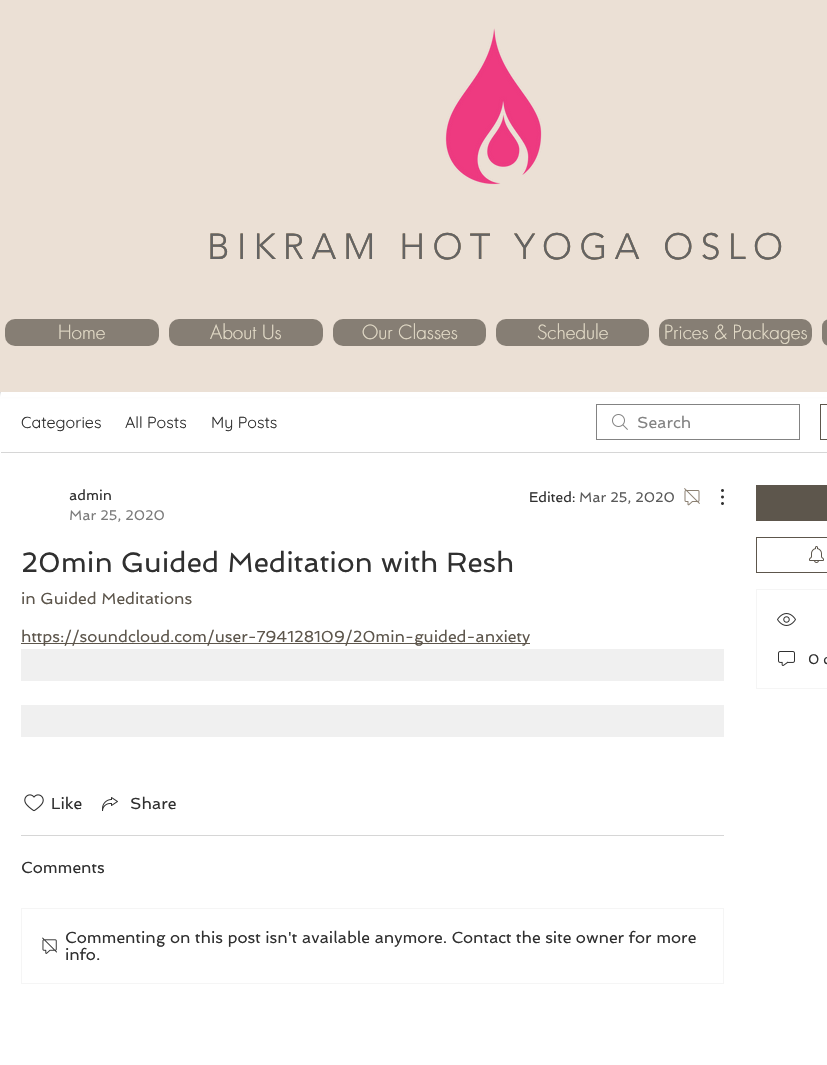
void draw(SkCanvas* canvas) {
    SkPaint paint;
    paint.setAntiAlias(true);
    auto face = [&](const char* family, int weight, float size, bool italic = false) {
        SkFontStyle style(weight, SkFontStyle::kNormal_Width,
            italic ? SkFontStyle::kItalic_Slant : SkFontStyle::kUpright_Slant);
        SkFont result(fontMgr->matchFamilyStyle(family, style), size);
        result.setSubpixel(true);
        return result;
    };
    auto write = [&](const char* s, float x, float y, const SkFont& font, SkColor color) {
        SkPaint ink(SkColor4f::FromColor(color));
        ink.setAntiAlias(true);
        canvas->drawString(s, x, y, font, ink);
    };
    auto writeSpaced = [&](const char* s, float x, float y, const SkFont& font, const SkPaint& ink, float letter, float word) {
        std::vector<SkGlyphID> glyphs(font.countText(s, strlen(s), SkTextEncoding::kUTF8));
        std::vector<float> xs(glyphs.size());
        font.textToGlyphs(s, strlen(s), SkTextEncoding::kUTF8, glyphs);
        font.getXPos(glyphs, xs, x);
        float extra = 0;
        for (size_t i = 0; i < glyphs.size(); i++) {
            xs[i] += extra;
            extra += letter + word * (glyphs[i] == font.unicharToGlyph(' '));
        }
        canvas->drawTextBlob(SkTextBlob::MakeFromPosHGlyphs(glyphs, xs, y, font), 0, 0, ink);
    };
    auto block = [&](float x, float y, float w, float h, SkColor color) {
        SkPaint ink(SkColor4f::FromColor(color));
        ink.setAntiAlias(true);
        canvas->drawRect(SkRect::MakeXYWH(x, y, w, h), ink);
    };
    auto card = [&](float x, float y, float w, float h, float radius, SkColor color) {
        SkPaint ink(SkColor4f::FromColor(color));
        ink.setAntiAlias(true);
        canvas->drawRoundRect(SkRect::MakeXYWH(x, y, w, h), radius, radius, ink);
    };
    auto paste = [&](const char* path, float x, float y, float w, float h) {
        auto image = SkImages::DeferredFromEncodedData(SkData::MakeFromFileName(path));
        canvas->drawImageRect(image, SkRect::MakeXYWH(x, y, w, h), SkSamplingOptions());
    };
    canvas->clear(SK_ColorWHITE);
    paint.setColor(SkColorSetARGB(128, 0, 0, 0));
    paint.setMaskFilter(SkMaskFilter::MakeBlur(kNormal_SkBlurStyle, 2.5f));
    canvas->drawRect(SkRect::MakeXYWH(0, 0, 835, 392), paint);
    paint.setMaskFilter(nullptr);
    block(0, 0, 827, 392, SkColorSetRGB(235, 224, 213));
    paste("pic1.png", 445, 28, 97, 157);
    auto kFont1 = face("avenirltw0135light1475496", 300, 36);
    paint.setColor(SkColorSetRGB(166, 133, 85));
    writeSpaced("BIKRAM HOT YOGA OSLO", 207, 259, kFont1, paint, 7.25f, 0);
    paint.setColor(SkColorSetRGB(100, 100, 100));
    writeSpaced("BIKRAM HOT YOGA OSLO", 207, 259, kFont1, paint, 7.25f, 0);
    card(5, 319, 154, 27, 10, SkColorSetRGB(134, 126, 116));
    auto kFont2 = face("futura", 300, 19);
    write("Home", 58, 339, kFont2, SkColorSetRGB(230, 222, 202));
    card(169, 319, 154, 27, 10, SkColorSetRGB(134, 126, 116));
    write("About Us", 210, 339, kFont2, SkColorSetRGB(230, 222, 202));
    card(333, 319, 153, 27, 10, SkColorSetRGB(134, 126, 116));
    write("Our Classes", 362, 339, kFont2, SkColorSetRGB(230, 222, 202));
    card(496, 319, 153, 27, 10, SkColorSetRGB(134, 126, 116));
    write("Schedule", 537, 339, kFont2, SkColorSetRGB(230, 222, 202));
    card(659, 319, 153, 27, 10, SkColorSetRGB(134, 126, 116));
    write("Prices & Packages", 664, 339, kFont2, SkColorSetRGB(230, 222, 202));
    card(822, 319, 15, 27, 10, SkColorSetRGB(134, 126, 116));
    block(1, 392, 826, 5, SK_ColorWHITE);
    block(1, 452, 826, 1, SkColorSetRGB(214, 214, 214));
    auto kFont3 = face("Quicksand", 400, 16);
    write("Categories", 21, 428, kFont3, SkColorSetRGB(48, 48, 48));
    write("All Posts", 125, 428, kFont3, SkColorSetRGB(48, 48, 48));
    write("My Posts", 211, 428, kFont3, SkColorSetRGB(48, 48, 48));
    paste("pic2.png", 612, 414, 16, 16);
    paint.setStyle(SkPaint::kStroke_Style);
    paint.setStrokeWidth(1);
    paint.setColor(SkColorSetRGB(131, 131, 131));
    canvas->drawRect(SkRect::MakeXYWH(596.5f, 404.5f, 203, 35), paint);
    auto kFont4 = face("Spinnaker", 400, 16);
    write("Search", 637, 428, kFont4, SkColorSetRGB(131, 131, 131));
    paint.setColor(SkColorSetRGB(93, 86, 76));
    canvas->drawRect(SkRect::MakeXYWH(820.5f, 404.5f, 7, 35), paint);
    auto kFont5 = face("Spinnaker", 400, 14);
    write("admin", 69, 500, kFont5, SkColorSetRGB(48, 48, 48));
    write("Mar 25, 2020", 69, 520, kFont5, SkColorSetRGB(123, 123, 123));
    write("Edited:", 529, 502, kFont5, SkColorSetRGB(48, 48, 48));
    write("Mar 25, 2020", 579, 502, kFont5, SkColorSetRGB(89, 89, 89));
    paste("pic3.png", 684, 488, 16, 18);
    paste("pic4.png", 721, 489, 3, 16);
    auto kFont6 = face("Spinnaker", 400, 28);
    write("20min Guided Meditation with Resh", 21, 572, kFont6, SkColorSetRGB(48, 48, 48));
    write("in Guided Meditations", 21, 604, kFont4, SkColorSetRGB(93, 86, 76));
    block(21, 643, 509, 1, SkColorSetRGB(93, 86, 76));
    write("https://soundcloud.com/user-794128109/20min-guided-anxiety", 21, 642, kFont4, SkColorSetRGB(93, 86, 76));
    block(21, 649, 703, 32, SkColorSetRGB(240, 240, 240));
    block(21, 705, 703, 32, SkColorSetRGB(240, 240, 240));
    paste("pic5.png", 24, 794, 20, 18);
    write("Like", 51, 809, kFont4, SkColorSetRGB(48, 48, 48));
    paste("pic6.png", 102, 797, 16, 14);
    write("Share", 130, 809, kFont4, SkColorSetRGB(48, 48, 48));
    block(21, 835, 703, 1, SkColorSetRGB(214, 214, 214));
    write("Comments", 21, 873, kFont4, SkColorSetRGB(48, 48, 48));
    paint.setColor(SkColorSetRGB(245, 245, 245));
    canvas->drawRect(SkRect::MakeXYWH(21.5f, 908.5f, 702, 75), paint);
    paste("pic7.png", 42, 937, 15, 17);
    write("Commenting on this post isn't available anymore. Contact the site owner for more", 65, 943, kFont4, SkColorSetRGB(48, 48, 48));
    write("info.", 65, 960, kFont4, SkColorSetRGB(48, 48, 48));
    block(756, 485, 71, 36, SkColorSetRGB(93, 86, 76));
    paint.setColor(SkColorSetRGB(93, 86, 76));
    canvas->drawRect(SkRect::MakeXYWH(756.5f, 537.5f, 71, 35), paint);
    paste("pic8.png", 809, 546, 15, 17);
    paint.setColor(SkColorSetRGB(245, 245, 245));
    canvas->drawRect(SkRect::MakeXYWH(756.5f, 589.5f, 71, 99), paint);
    paste("pic9.png", 777, 613, 19, 13);
    paste("pic10.png", 778, 651, 17, 15);
    write("0 c", 808, 664, kFont5, SkColorSetRGB(48, 48, 48));
}
